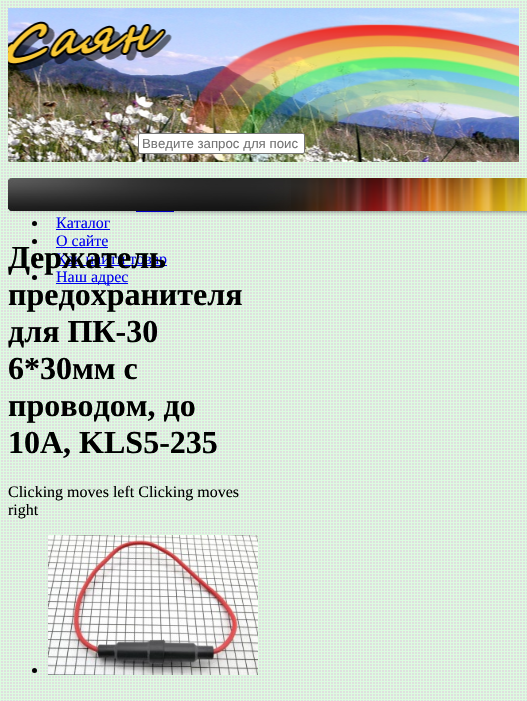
void draw(SkCanvas* canvas) {
    SkPaint paint;
    paint.setAntiAlias(true);
    auto face = [&](const char* family, int weight, float size, bool italic = false) {
        SkFontStyle style(weight, SkFontStyle::kNormal_Width,
            italic ? SkFontStyle::kItalic_Slant : SkFontStyle::kUpright_Slant);
        SkFont result(fontMgr->matchFamilyStyle(family, style), size);
        result.setSubpixel(true);
        return result;
    };
    auto write = [&](const char* s, float x, float y, const SkFont& font, SkColor color) {
        SkPaint ink(SkColor4f::FromColor(color));
        ink.setAntiAlias(true);
        canvas->drawString(s, x, y, font, ink);
    };
    auto block = [&](float x, float y, float w, float h, SkColor color) {
        SkPaint ink(SkColor4f::FromColor(color));
        ink.setAntiAlias(true);
        canvas->drawRect(SkRect::MakeXYWH(x, y, w, h), ink);
    };
    auto paste = [&](const char* path, float x, float y, float w, float h) {
        auto image = SkImages::DeferredFromEncodedData(SkData::MakeFromFileName(path));
        canvas->drawImageRect(image, SkRect::MakeXYWH(x, y, w, h), SkSamplingOptions());
    };
    canvas->clear(SkColorSetRGB(221, 251, 224));
    paste("pic1.png", 1, 1, 526, 700);
    paste("pic2.png", 8, 8, 511, 154);
    paint.setColor(SK_ColorWHITE);
    canvas->drawRoundRect(SkRect::MakeXYWH(138.5f, 133.5f, 166, 20), 1.5f, 1.5f, paint);
    paint.setStyle(SkPaint::kStroke_Style);
    paint.setStrokeWidth(1);
    paint.setColor(SkColorSetRGB(118, 118, 118));
    canvas->drawRoundRect(SkRect::MakeXYWH(138.5f, 133.5f, 166, 20), 1.5f, 1.5f, paint);
    auto kFont1 = face("Liberation Sans", 400, 13.25f);
    write("Введите запрос для поис", 142, 148, kFont1, SkColorSetRGB(117, 117, 117));
    block(136, 211, 38, 1, SkColorSetRGB(0, 0, 238));
    paste("pic3.png", 8, 178, 519, 38);
    paint.setStyle(SkPaint::kFill_Style);
    paint.setColor(SK_ColorBLACK);
    canvas->drawCircle(34.5f, 223.5f, 2.5f, paint);
    auto kFont2 = face("Liberation Serif", 400, 16);
    write("Каталог", 56, 228, kFont2, SkColorSetRGB(0, 0, 238));
    block(56, 229, 54, 1, SkColorSetRGB(0, 0, 238));
    canvas->drawCircle(34.5f, 241.5f, 2.5f, paint);
    write("О сайте", 56, 246, kFont2, SkColorSetRGB(0, 0, 238));
    block(56, 247, 52, 1, SkColorSetRGB(0, 0, 238));
    canvas->drawCircle(34.5f, 259.5f, 2.5f, paint);
    block(56, 265, 111, 1, SkColorSetRGB(0, 0, 238));
    write("Как найти товар", 56, 264, kFont2, SkColorSetRGB(0, 0, 238));
    canvas->drawCircle(34.5f, 277.5f, 2.5f, paint);
    block(56, 283, 72, 1, SkColorSetRGB(0, 0, 238));
    write("Наш адрес", 56, 282, kFont2, SkColorSetRGB(0, 0, 238));
    auto kFont3 = face("Liberation Serif", 700, 32);
    write("Держатель", 8, 268, kFont3, SK_ColorBLACK);
    write("предохранителя", 8, 305, kFont3, SK_ColorBLACK);
    write("для ПК-30", 8, 342, kFont3, SK_ColorBLACK);
    write("6*30мм с", 8, 379, kFont3, SK_ColorBLACK);
    write("проводом, до", 8, 416, kFont3, SK_ColorBLACK);
    write("10А, KLS5-235", 8, 453, kFont3, SK_ColorBLACK);
    write("Clicking moves left Clicking moves", 8, 497, kFont2, SK_ColorBLACK);
    write("right", 8, 515, kFont2, SK_ColorBLACK);
    canvas->drawCircle(34.5f, 670.5f, 2.5f, paint);
    paste("pic4.png", 48, 535, 210, 140);
}
